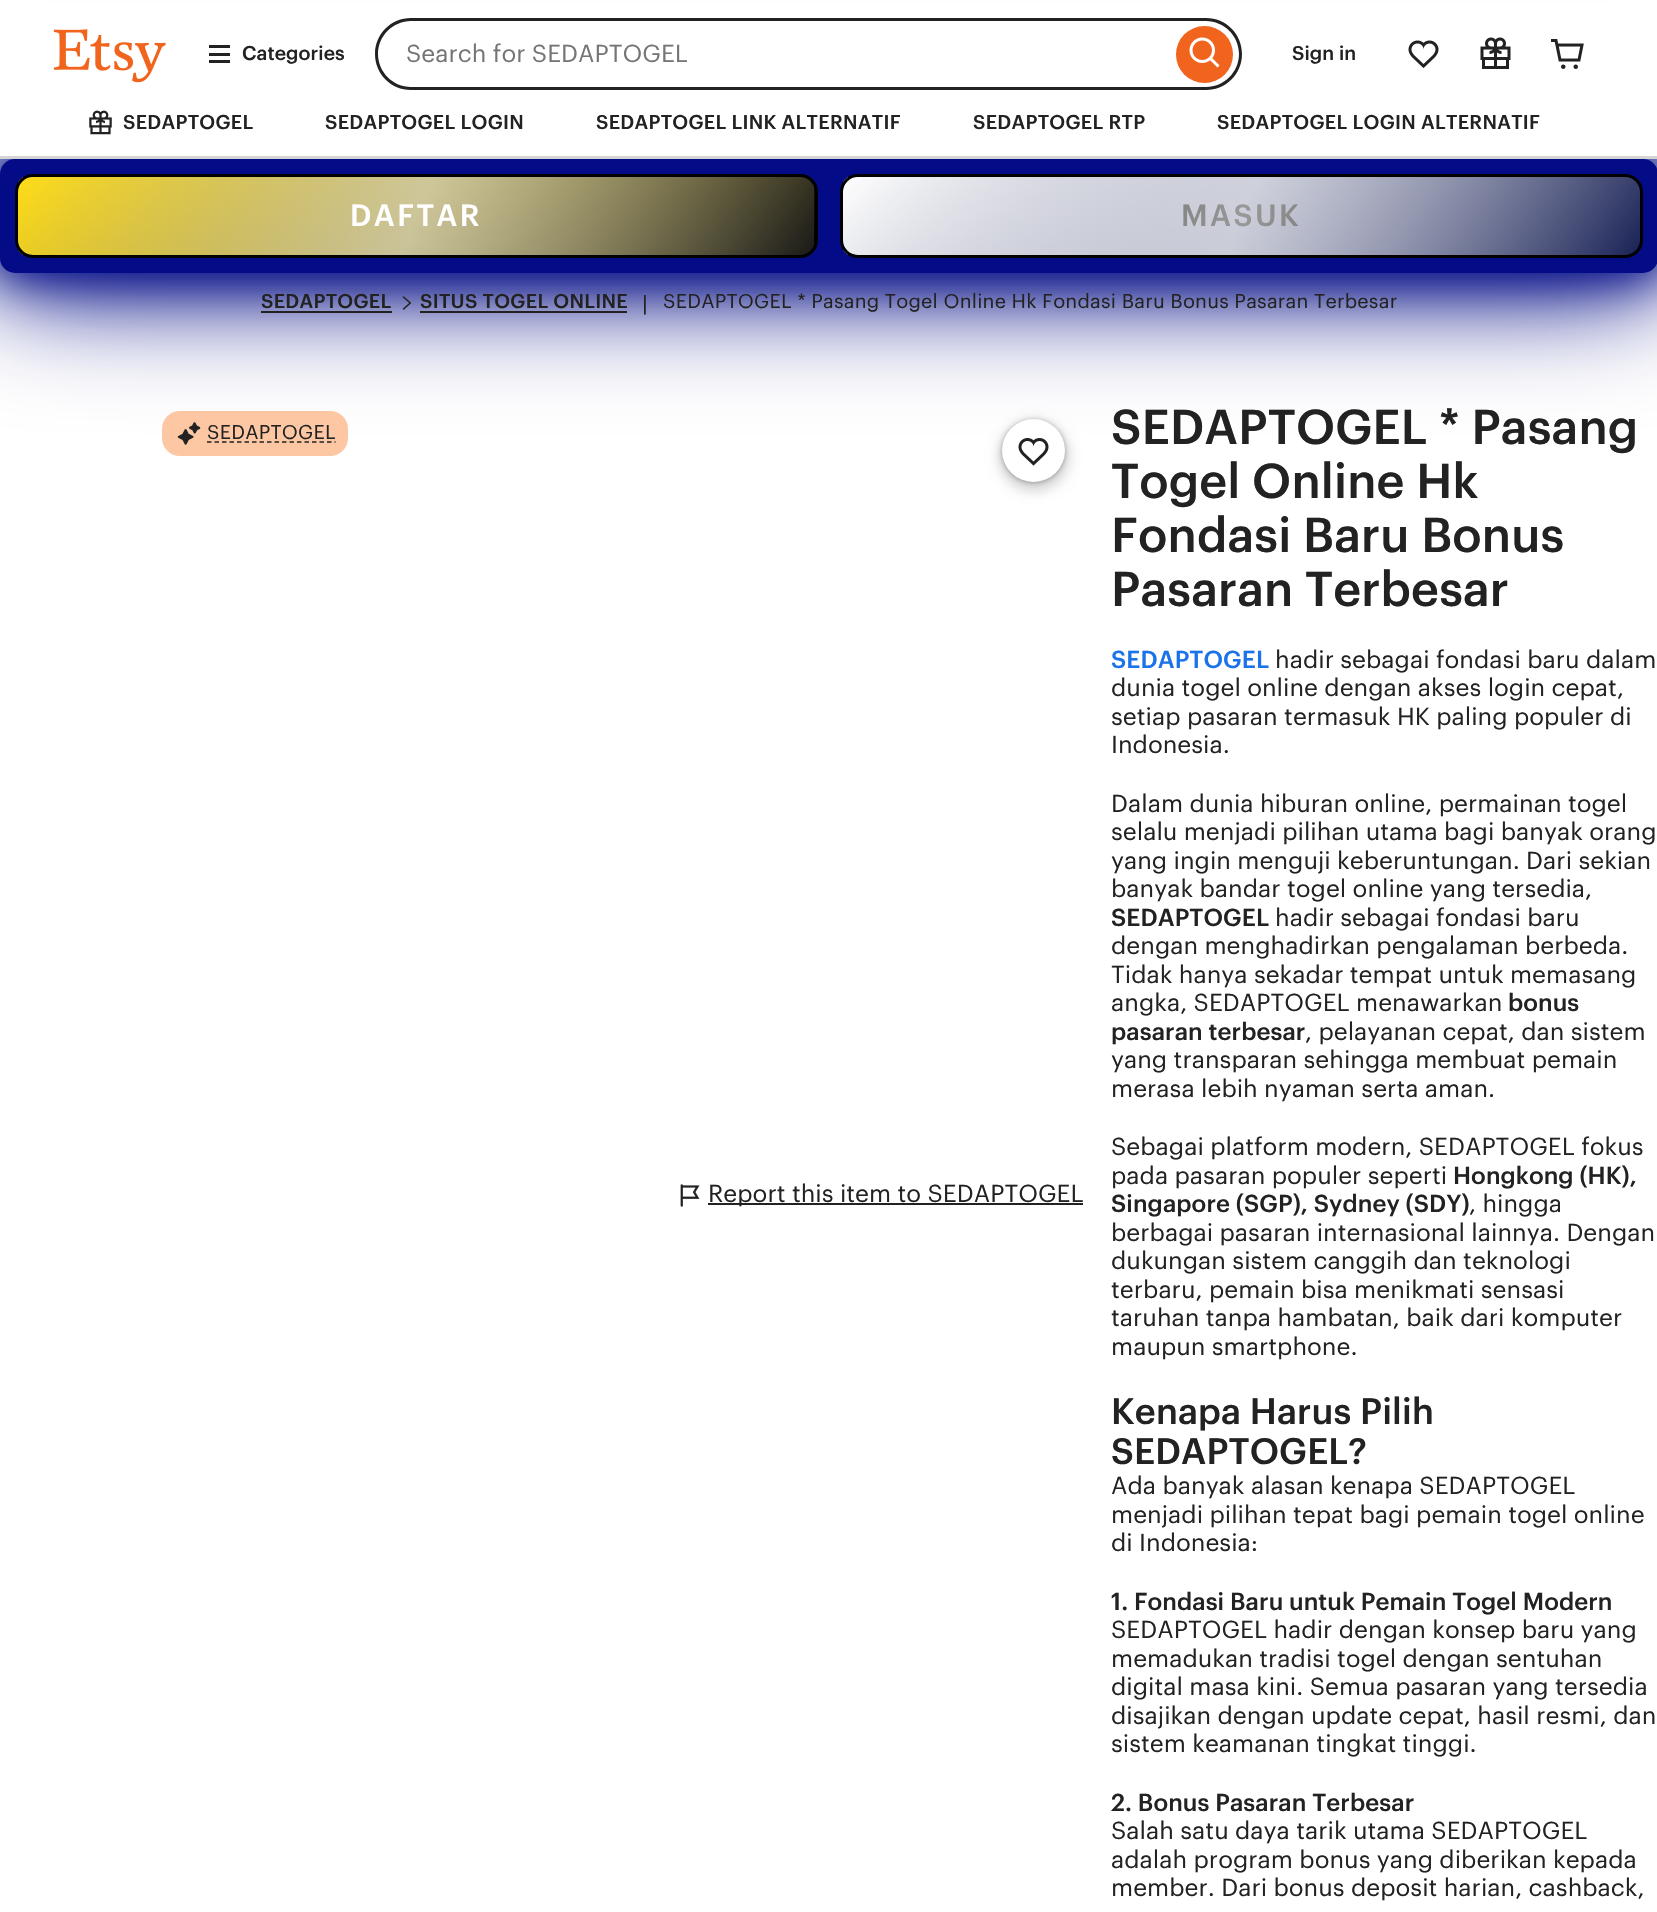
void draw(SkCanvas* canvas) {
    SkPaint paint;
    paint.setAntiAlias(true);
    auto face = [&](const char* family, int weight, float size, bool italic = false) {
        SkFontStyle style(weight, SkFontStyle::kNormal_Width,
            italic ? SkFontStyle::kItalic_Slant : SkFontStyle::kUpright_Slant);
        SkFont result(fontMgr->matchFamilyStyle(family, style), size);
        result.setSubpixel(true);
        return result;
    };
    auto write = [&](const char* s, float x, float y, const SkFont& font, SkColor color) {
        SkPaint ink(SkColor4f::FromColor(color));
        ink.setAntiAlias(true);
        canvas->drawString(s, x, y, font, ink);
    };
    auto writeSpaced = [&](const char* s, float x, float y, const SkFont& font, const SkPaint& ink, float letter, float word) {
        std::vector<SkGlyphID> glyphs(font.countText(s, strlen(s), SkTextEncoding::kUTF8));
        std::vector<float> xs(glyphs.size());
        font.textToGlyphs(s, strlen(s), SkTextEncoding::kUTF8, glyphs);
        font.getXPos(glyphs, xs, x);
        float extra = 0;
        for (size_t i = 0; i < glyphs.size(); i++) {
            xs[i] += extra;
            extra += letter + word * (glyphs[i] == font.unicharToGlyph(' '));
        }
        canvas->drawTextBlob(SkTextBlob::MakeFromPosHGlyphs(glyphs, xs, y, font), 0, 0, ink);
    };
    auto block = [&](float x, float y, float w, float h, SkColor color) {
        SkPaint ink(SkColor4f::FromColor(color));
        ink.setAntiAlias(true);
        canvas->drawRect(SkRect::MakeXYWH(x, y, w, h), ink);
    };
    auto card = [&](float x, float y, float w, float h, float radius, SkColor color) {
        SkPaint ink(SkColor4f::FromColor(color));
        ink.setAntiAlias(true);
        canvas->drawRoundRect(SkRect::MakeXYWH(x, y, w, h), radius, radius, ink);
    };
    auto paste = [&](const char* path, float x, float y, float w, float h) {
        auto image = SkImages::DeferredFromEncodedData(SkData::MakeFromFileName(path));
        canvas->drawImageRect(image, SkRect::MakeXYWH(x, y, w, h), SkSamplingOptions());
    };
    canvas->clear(SK_ColorWHITE);
    paint.setColor(SkColorSetRGB(3, 12, 134));
    paint.setMaskFilter(SkMaskFilter::MakeBlur(kNormal_SkBlurStyle, 67.5f));
    canvas->drawRoundRect(SkRect::MakeXYWH(0, 159, 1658, 114), 15, 15, paint);
    paint.setMaskFilter(nullptr);
    paint.setMaskFilter(SkMaskFilter::MakeBlur(kNormal_SkBlurStyle, 45));
    canvas->drawRoundRect(SkRect::MakeXYWH(0, 159, 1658, 114), 15, 15, paint);
    paint.setMaskFilter(nullptr);
    paint.setMaskFilter(SkMaskFilter::MakeBlur(kNormal_SkBlurStyle, 22.5f));
    canvas->drawRoundRect(SkRect::MakeXYWH(0, 159, 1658, 114), 15, 15, paint);
    paint.setMaskFilter(nullptr);
    block(0, 3, 1657, 153, SK_ColorWHITE);
    paste("pic1.png", 53, 29, 113, 54);
    block(209, 53, 21, 3, SkColorSetRGB(34, 34, 34));
    block(209, 60, 21, 3, SkColorSetRGB(34, 34, 34));
    block(209, 45, 21, 3, SkColorSetRGB(34, 34, 34));
    auto kFont1 = face("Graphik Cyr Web", 500, 19.5f);
    write("Categories", 242, 60, kFont1, SkColorSetRGB(34, 34, 34));
    paint.setColor(SkColorSetRGB(34, 34, 34));
    canvas->drawPath(SkPathBuilder().moveTo(183, 117).lineTo(183, 115.5f).lineTo(184.5f, 117).close().detach(), paint);
    canvas->drawPath(SkPathBuilder(SkPathFillType::kEvenOdd).moveTo(411, 18).lineTo(1168, 18).lineTo(1168, 90).lineTo(411, 90).cubicTo(391, 90, 375, 74, 375, 54).cubicTo(375, 34, 391, 18, 411, 18).close().moveTo(411, 21).lineTo(1168, 21).lineTo(1168, 87).lineTo(411, 87).cubicTo(393, 87, 378, 72, 378, 54).cubicTo(378, 36, 393, 21, 411, 21).close().detach(), paint);
    auto kFont2 = face("Graphik Cyr Web", 400, 24);
    write("Search for SEDAPTOGEL", 406, 62, kFont2, SkColorSetRGB(117, 117, 117));
    canvas->drawPath(SkPathBuilder(SkPathFillType::kEvenOdd).moveTo(1168, 18).lineTo(1206, 18).cubicTo(1226, 18, 1242, 34, 1242, 54).cubicTo(1242, 74, 1226, 90, 1206, 90).lineTo(1168, 90).close().moveTo(1168, 21).lineTo(1206, 21).cubicTo(1224, 21, 1239, 36, 1239, 54).cubicTo(1239, 72, 1224, 87, 1206, 87).lineTo(1168, 87).close().detach(), paint);
    paint.setColor(SkColorSetRGB(241, 100, 30));
    canvas->drawCircle(1204.5f, 54.5f, 28.5f, paint);
    paste("pic2.png", 1189, 37, 31, 31);
    write("Sign in", 1292, 60, kFont1, SkColorSetRGB(34, 34, 34));
    paste("pic3.png", 1408, 40, 31, 28);
    paste("pic4.png", 1480, 37, 31, 32);
    paste("pic5.png", 1551, 39, 33, 30);
    paste("pic6.png", 89, 110, 23, 25);
    paint.setColor(SkColorSetRGB(34, 34, 34));
    writeSpaced("SEDAPTOGEL", 123, 129, kFont1, paint, 0.2f, 0);
    writeSpaced("SEDAPTOGEL LOGIN", 325, 129, kFont1, paint, 0.2f, 0);
    writeSpaced("SEDAPTOGEL LINK ALTERNATIF", 596, 129, kFont1, paint, 0.2f, 0);
    writeSpaced("SEDAPTOGEL RTP", 973, 129, kFont1, paint, 0.2f, 0);
    writeSpaced("SEDAPTOGEL LOGIN ALTERNATIF", 1217, 129, kFont1, paint, 0.2f, 0);
    block(0, 156, 1657, 3, SkColorSetRGB(212, 212, 212));
    {
        const SkColor colors[] = {SkColorSetRGB(2, 98, 243), SkColorSetRGB(3, 12, 134), SkColorSetRGB(3, 12, 134)};
        const float stops[] = {0, 0.5f, 1};
        const SkPoint ends[] = {{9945, 501}, {0, 501}};
        paint.setShader(SkGradientShader::MakeLinear(ends, colors, stops, 3, SkTileMode::kClamp));
        paint.setAlpha(255);
    }
    canvas->drawRoundRect(SkRect::MakeXYWH(0, 159, 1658, 114), 15, 15, paint);
    canvas->save();
    canvas->clipPath(SkPathBuilder().moveTo(33, 174).lineTo(800, 174).cubicTo(810, 174, 818, 182, 818, 192).lineTo(818, 240).cubicTo(818, 250, 810, 258, 800, 258).lineTo(33, 258).cubicTo(23, 258, 15, 250, 15, 240).lineTo(15, 192).cubicTo(15, 182, 23, 174, 33, 174).close().detach(), true);
    {
        const SkColor colors[] = {SkColorSetRGB(255, 217, 1), SK_ColorBLACK};
        const float stops[] = {0, 1};
        const SkPoint ends[] = {{198, -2.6f}, {635, 435}};
        paint.setShader(SkGradientShader::MakeLinear(ends, colors, stops, 2, SkTileMode::kClamp));
        paint.setAlpha(255);
    }
    canvas->drawRect(SkRect::MakeXYWH(18, 177, 797, 78), paint);
    canvas->restore();
    paint.setStyle(SkPaint::kStroke_Style);
    paint.setStrokeWidth(3);
    paint.setShader(nullptr);
    paint.setColor(SK_ColorBLACK);
    canvas->drawRoundRect(SkRect::MakeXYWH(16.5f, 175.5f, 800, 81), 16.5f, 16.5f, paint);
    auto kFont3 = face("Graphik Cyr Web", 500, 30);
    paint.setStyle(SkPaint::kFill_Style);
    paint.setColor(SK_ColorWHITE);
    writeSpaced("DAFTAR", 350, 226, kFont3, paint, 2.25f, 0);
    {
        const SkColor colors[] = {SkColorSetARGB(26, 255, 255, 255), SkColorSetARGB(153, 255, 255, 255), SkColorSetARGB(26, 255, 255, 255)};
        const float stops[] = {0, 0.5f, 1};
        const SkPoint ends[] = {{67, 75}, {766, 356}};
        paint.setShader(SkGradientShader::MakeLinear(ends, colors, stops, 3, SkTileMode::kClamp));
        paint.setAlpha(255);
    }
    canvas->drawPath(SkPathBuilder().moveTo(33, 177).cubicTo(25, 177, 18, 184, 18, 192).lineTo(18, 240).cubicTo(18, 248, 25, 255, 33, 255).lineTo(800, 255).cubicTo(806, 255, 812, 251, 814, 245).lineTo(814, 187).cubicTo(812, 181, 806, 177, 800, 177).close().detach(), paint);
    canvas->save();
    canvas->clipPath(SkPathBuilder().moveTo(858, 174).lineTo(1625, 174).cubicTo(1635, 174, 1643, 182, 1643, 192).lineTo(1643, 240).cubicTo(1643, 250, 1635, 258, 1625, 258).lineTo(858, 258).cubicTo(848, 258, 840, 250, 840, 240).lineTo(840, 192).cubicTo(840, 182, 848, 174, 858, 174).close().detach(), true);
    {
        const SkColor colors[] = {SK_ColorWHITE, SkColorSetRGB(1, 11, 68)};
        const float stops[] = {0, 1};
        const SkPoint ends[] = {{1023, -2.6f}, {1460, 435}};
        paint.setShader(SkGradientShader::MakeLinear(ends, colors, stops, 2, SkTileMode::kClamp));
        paint.setAlpha(255);
    }
    canvas->drawRect(SkRect::MakeXYWH(843, 177, 797, 78), paint);
    canvas->restore();
    paint.setStyle(SkPaint::kStroke_Style);
    paint.setShader(nullptr);
    paint.setColor(SK_ColorBLACK);
    canvas->drawRoundRect(SkRect::MakeXYWH(841.5f, 175.5f, 800, 81), 16.5f, 16.5f, paint);
    paint.setStyle(SkPaint::kFill_Style);
    writeSpaced("MASUK", 1181, 226, kFont3, paint, 2.25f, 0);
    {
        const SkColor colors[] = {SkColorSetARGB(26, 255, 255, 255), SkColorSetARGB(153, 255, 255, 255), SkColorSetARGB(26, 255, 255, 255)};
        const float stops[] = {0, 0.5f, 1};
        const SkPoint ends[] = {{892, 75}, {1591, 356}};
        paint.setShader(SkGradientShader::MakeLinear(ends, colors, stops, 3, SkTileMode::kClamp));
        paint.setAlpha(255);
    }
    canvas->drawPath(SkPathBuilder().moveTo(858, 177).cubicTo(850, 177, 843, 184, 843, 192).lineTo(843, 240).cubicTo(843, 248, 850, 255, 858, 255).lineTo(1625, 255).cubicTo(1633, 255, 1640, 248, 1640, 240).lineTo(1640, 192).cubicTo(1640, 184, 1633, 177, 1625, 177).close().detach(), paint);
    paint.setShader(nullptr);
    paint.setColor(SkColorSetRGB(34, 34, 34));
    writeSpaced("SEDAPTOGEL", 261, 308, kFont1, paint, 0.2f, 0);
    block(261, 311, 131, 2, SkColorSetRGB(34, 34, 34));
    paste("pic7.png", 402, 296, 10, 14);
    writeSpaced("SITUS TOGEL ONLINE", 420, 308, kFont1, paint, 0.2f, 0);
    block(420, 311, 207, 2, SkColorSetRGB(34, 34, 34));
    auto kFont4 = face("DejaVu Sans Mono", 400, 19.5f);
    writeSpaced("|", 639, 310, kFont4, paint, 0.2f, 0);
    auto kFont5 = face("Graphik Cyr Web", 400, 19.5f);
    writeSpaced("SEDAPTOGEL * Pasang Togel Online Hk Fondasi Baru Bonus Pasaran Terbesar", 663, 308, kFont5, paint, 0.2f, 0);
    card(162, 411, 186, 45, 18, SkColorSetRGB(252, 199, 162));
    paste("pic8.png", 177, 422, 24, 23);
    writeSpaced("SEDAPTOGEL", 207, 439, kFont5, paint, 0.2f, 0);
    paint.setStyle(SkPaint::kStroke_Style);
    paint.setStrokeWidth(1.5f);
    paint.setPathEffect(SkDashPathEffect::Make({{4.5f, 3}}, 0));
    canvas->drawPath(SkPathBuilder().moveTo(207, 442).lineTo(335.5f, 442).detach(), paint);
    paint.setPathEffect(nullptr);
    paint.setStyle(SkPaint::kFill_Style);
    paint.setColor(SkColorSetARGB(38, 0, 0, 0));
    paint.setMaskFilter(SkMaskFilter::MakeBlur(kNormal_SkBlurStyle, 6));
    canvas->drawRoundRect(SkRect::MakeXYWH(998, 420, 72, 72), 36, 36, paint);
    paint.setMaskFilter(nullptr);
    paint.setColor(SkColorSetARGB(77, 0, 0, 0));
    paint.setMaskFilter(SkMaskFilter::MakeBlur(kNormal_SkBlurStyle, 2.5f));
    canvas->drawRoundRect(SkRect::MakeXYWH(1002, 420, 63, 63), 31.5f, 31.5f, paint);
    paint.setMaskFilter(nullptr);
    paint.setColor(SK_ColorWHITE);
    canvas->drawCircle(1033.5f, 450.5f, 31.5f, paint);
    paste("pic9.png", 1018, 438, 31, 28);
    paste("pic10.png", 680, 1184, 20, 23);
    block(708, 1203, 375, 2, SkColorSetRGB(34, 34, 34));
    write("Report this item to SEDAPTOGEL", 708, 1202, kFont2, SkColorSetRGB(34, 34, 34));
    auto kFont6 = face("Graphik Cyr Web", 500, 48);
    write("SEDAPTOGEL * Pasang", 1111, 444, kFont6, SkColorSetRGB(34, 34, 34));
    write("Togel Online Hk", 1111, 498, kFont6, SkColorSetRGB(34, 34, 34));
    write("Fondasi Baru Bonus", 1111, 552, kFont6, SkColorSetRGB(34, 34, 34));
    write("Pasaran Terbesar", 1111, 606, kFont6, SkColorSetRGB(34, 34, 34));
    auto kFont7 = face("Graphik Cyr Web", 500, 24);
    write("SEDAPTOGEL", 1111, 668, kFont7, SkColorSetRGB(26, 115, 232));
    write("hadir sebagai fondasi baru dalam", 1275, 668, kFont2, SkColorSetRGB(34, 34, 34));
    write("dunia togel online dengan akses login cepat,", 1111, 696, kFont2, SkColorSetRGB(34, 34, 34));
    write("setiap pasaran termasuk HK paling populer di", 1111, 725, kFont2, SkColorSetRGB(34, 34, 34));
    write("Indonesia.", 1111, 753, kFont2, SkColorSetRGB(34, 34, 34));
    write("Dalam dunia hiburan online, permainan togel", 1111, 812, kFont2, SkColorSetRGB(34, 34, 34));
    write("selalu menjadi pilihan utama bagi banyak orang", 1111, 840, kFont2, SkColorSetRGB(34, 34, 34));
    write("yang ingin menguji keberuntungan. Dari sekian", 1111, 869, kFont2, SkColorSetRGB(34, 34, 34));
    write("banyak bandar togel online yang tersedia,", 1111, 897, kFont2, SkColorSetRGB(34, 34, 34));
    write("SEDAPTOGEL", 1111, 926, kFont7, SkColorSetRGB(34, 34, 34));
    write("hadir sebagai fondasi baru", 1275, 926, kFont2, SkColorSetRGB(34, 34, 34));
    write("dengan menghadirkan pengalaman berbeda.", 1111, 954, kFont2, SkColorSetRGB(34, 34, 34));
    write("Tidak hanya sekadar tempat untuk memasang", 1111, 983, kFont2, SkColorSetRGB(34, 34, 34));
    write("angka, SEDAPTOGEL menawarkan", 1111, 1011, kFont2, SkColorSetRGB(34, 34, 34));
    write("bonus", 1508, 1011, kFont7, SkColorSetRGB(34, 34, 34));
    write("pasaran terbesar", 1111, 1040, kFont7, SkColorSetRGB(34, 34, 34));
    write(", pelayanan cepat, dan sistem", 1305, 1040, kFont2, SkColorSetRGB(34, 34, 34));
    write("yang transparan sehingga membuat pemain", 1111, 1068, kFont2, SkColorSetRGB(34, 34, 34));
    write("merasa lebih nyaman serta aman.", 1111, 1097, kFont2, SkColorSetRGB(34, 34, 34));
    write("Sebagai platform modern, SEDAPTOGEL fokus", 1111, 1155, kFont2, SkColorSetRGB(34, 34, 34));
    write("pada pasaran populer seperti", 1111, 1184, kFont2, SkColorSetRGB(34, 34, 34));
    write("Hongkong (HK),", 1453, 1184, kFont7, SkColorSetRGB(34, 34, 34));
    write("Singapore (SGP), Sydney (SDY)", 1111, 1212, kFont7, SkColorSetRGB(34, 34, 34));
    write(", hingga", 1469, 1212, kFont2, SkColorSetRGB(34, 34, 34));
    write("berbagai pasaran internasional lainnya. Dengan", 1111, 1241, kFont2, SkColorSetRGB(34, 34, 34));
    write("dukungan sistem canggih dan teknologi", 1111, 1269, kFont2, SkColorSetRGB(34, 34, 34));
    write("terbaru, pemain bisa menikmati sensasi", 1111, 1298, kFont2, SkColorSetRGB(34, 34, 34));
    write("taruhan tanpa hambatan, baik dari komputer", 1111, 1326, kFont2, SkColorSetRGB(34, 34, 34));
    write("maupun smartphone.", 1111, 1355, kFont2, SkColorSetRGB(34, 34, 34));
    auto kFont8 = face("Graphik Cyr Web", 500, 36);
    write("Kenapa Harus Pilih", 1111, 1424, kFont8, SkColorSetRGB(34, 34, 34));
    write("SEDAPTOGEL?", 1111, 1464, kFont8, SkColorSetRGB(34, 34, 34));
    write("Ada banyak alasan kenapa SEDAPTOGEL", 1111, 1494, kFont2, SkColorSetRGB(34, 34, 34));
    write("menjadi pilihan tepat bagi pemain togel online", 1111, 1523, kFont2, SkColorSetRGB(34, 34, 34));
    write("di Indonesia:", 1111, 1551, kFont2, SkColorSetRGB(34, 34, 34));
    write("1. Fondasi Baru untuk Pemain Togel Modern", 1111, 1610, kFont7, SkColorSetRGB(34, 34, 34));
    write("SEDAPTOGEL hadir dengan konsep baru yang", 1111, 1638, kFont2, SkColorSetRGB(34, 34, 34));
    write("memadukan tradisi togel dengan sentuhan", 1111, 1667, kFont2, SkColorSetRGB(34, 34, 34));
    write("digital masa kini. Semua pasaran yang tersedia", 1111, 1695, kFont2, SkColorSetRGB(34, 34, 34));
    write("disajikan dengan update cepat, hasil resmi, dan", 1111, 1724, kFont2, SkColorSetRGB(34, 34, 34));
    write("sistem keamanan tingkat tinggi.", 1111, 1752, kFont2, SkColorSetRGB(34, 34, 34));
    write("2. Bonus Pasaran Terbesar", 1111, 1811, kFont7, SkColorSetRGB(34, 34, 34));
    write("Salah satu daya tarik utama SEDAPTOGEL", 1111, 1839, kFont2, SkColorSetRGB(34, 34, 34));
    write("adalah program bonus yang diberikan kepada", 1111, 1868, kFont2, SkColorSetRGB(34, 34, 34));
    write("member. Dari bonus deposit harian, cashback,", 1111, 1896, kFont2, SkColorSetRGB(34, 34, 34));
}
